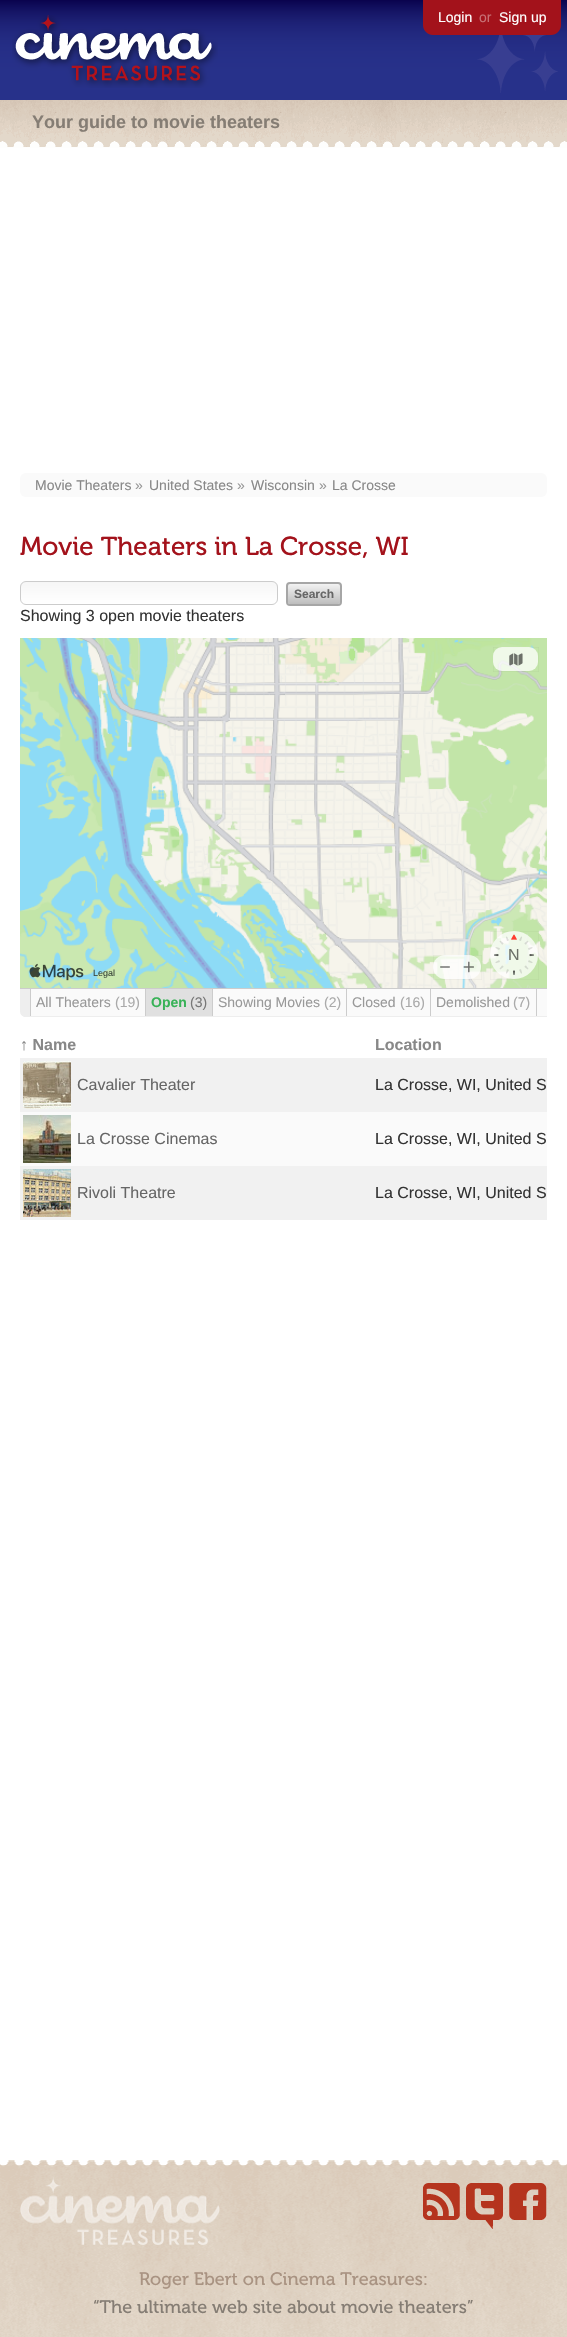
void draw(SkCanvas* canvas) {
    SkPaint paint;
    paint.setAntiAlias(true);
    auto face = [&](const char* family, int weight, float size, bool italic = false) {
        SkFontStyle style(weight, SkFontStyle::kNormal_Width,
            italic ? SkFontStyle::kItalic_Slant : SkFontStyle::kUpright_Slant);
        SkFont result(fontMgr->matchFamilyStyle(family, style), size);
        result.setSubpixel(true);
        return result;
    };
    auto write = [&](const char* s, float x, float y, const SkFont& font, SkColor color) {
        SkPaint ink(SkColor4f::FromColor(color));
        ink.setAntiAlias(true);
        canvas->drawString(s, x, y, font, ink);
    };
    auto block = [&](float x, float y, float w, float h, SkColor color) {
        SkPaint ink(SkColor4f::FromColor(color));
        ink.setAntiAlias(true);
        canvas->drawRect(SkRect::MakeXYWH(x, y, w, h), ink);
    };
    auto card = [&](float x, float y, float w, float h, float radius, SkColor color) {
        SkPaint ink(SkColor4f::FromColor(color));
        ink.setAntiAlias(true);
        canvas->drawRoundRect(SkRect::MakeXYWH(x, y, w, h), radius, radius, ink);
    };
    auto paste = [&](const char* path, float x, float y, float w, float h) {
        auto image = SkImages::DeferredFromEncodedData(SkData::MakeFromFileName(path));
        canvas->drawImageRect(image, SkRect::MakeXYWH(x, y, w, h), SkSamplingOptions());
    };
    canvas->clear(SK_ColorWHITE);
    paste("pic1.png", 0, 0, 567, 100);
    paste("pic2.png", 12, 15, 206, 73);
    paint.setColor(SkColorSetRGB(163, 18, 27));
    canvas->drawPath(SkPathBuilder().moveTo(423, 0).lineTo(561, 0).lineTo(561, 25).cubicTo(561, 30.5f, 556.5f, 35, 551, 35).lineTo(433, 35).cubicTo(427.5f, 35, 423, 30.5f, 423, 25).close().detach(), paint);
    auto kFont1 = face("Liberation Sans", 400, 14);
    write("Login", 438, 22, kFont1, SK_ColorWHITE);
    write("or", 479, 22, kFont1, SkColorSetRGB(200, 113, 118));
    write("Sign up", 499, 22, kFont1, SK_ColorWHITE);
    paste("pic3.png", 477, 35, 81, 58);
    paste("pic4.png", 0, 100, 567, 48);
    auto kFont2 = face("Liberation Sans", 700, 18);
    write("Your guide to movie theaters", 32, 128, kFont2, SkColorSetRGB(133, 125, 116));
    card(20, 473, 527, 24, 6, SkColorSetRGB(250, 250, 250));
    write("Movie Theaters", 35, 490, kFont1, SkColorSetRGB(136, 136, 136));
    write("»", 135, 490, kFont1, SkColorSetRGB(153, 153, 153));
    write("United States", 149, 490, kFont1, SkColorSetRGB(136, 136, 136));
    write("»", 237, 490, kFont1, SkColorSetRGB(153, 153, 153));
    write("Wisconsin", 251, 490, kFont1, SkColorSetRGB(136, 136, 136));
    write("»", 319, 490, kFont1, SkColorSetRGB(153, 153, 153));
    write("La Crosse", 332, 490, kFont1, SkColorSetRGB(136, 136, 136));
    auto kFont3 = face("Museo", 400, 26);
    write("Movie Theaters in La Crosse, WI", 20, 555, kFont3, SkColorSetRGB(163, 18, 27));
    canvas->save();
    canvas->clipPath(SkPathBuilder().moveTo(26, 581).lineTo(272, 581).cubicTo(275.5f, 581, 278, 583.5f, 278, 587).lineTo(278, 599).cubicTo(278, 602.5f, 275.5f, 605, 272, 605).lineTo(26, 605).cubicTo(22.5f, 605, 20, 602.5f, 20, 599).lineTo(20, 587).cubicTo(20, 583.5f, 22.5f, 581, 26, 581).close().detach(), true);
    {
        const SkColor colors[] = {SkColorSetRGB(246, 246, 246), SK_ColorWHITE};
        const float stops[] = {0, 1};
        const SkPoint ends[] = {{149, 582}, {149, 604}};
        paint.setShader(SkGradientShader::MakeLinear(ends, colors, stops, 2, SkTileMode::kClamp));
        paint.setAlpha(255);
    }
    canvas->drawRect(SkRect::MakeXYWH(20, 582, 258, 22), paint);
    canvas->restore();
    paint.setStyle(SkPaint::kStroke_Style);
    paint.setStrokeWidth(1);
    paint.setShader(nullptr);
    paint.setColor(SkColorSetRGB(204, 204, 204));
    canvas->drawRoundRect(SkRect::MakeXYWH(20.5f, 581.5f, 257, 23), 5.5f, 5.5f, paint);
    paint.setStyle(SkPaint::kFill_Style);
    {
        const SkColor colors[] = {SkColorSetRGB(242, 242, 242), SkColorSetRGB(189, 189, 189)};
        const float stops[] = {0, 1};
        const SkPoint ends[] = {{314, 584}, {314, 604}};
        paint.setShader(SkGradientShader::MakeLinear(ends, colors, stops, 2, SkTileMode::kClamp));
        paint.setAlpha(255);
    }
    canvas->drawRoundRect(SkRect::MakeXYWH(288, 584, 52, 20), 2, 2, paint);
    paint.setStyle(SkPaint::kStroke_Style);
    paint.setStrokeWidth(2);
    paint.setShader(nullptr);
    paint.setColor(SkColorSetRGB(166, 166, 166));
    canvas->drawRoundRect(SkRect::MakeXYWH(287, 583, 54, 22), 3, 3, paint);
    auto kFont4 = face("Liberation Sans", 700, 12);
    write("Search", 294, 598, kFont4, SkColorSetRGB(102, 102, 102));
    auto kFont5 = face("Liberation Sans", 400, 16);
    write("Showing 3 open movie theaters", 20, 621, kFont5, SkColorSetRGB(51, 51, 51));
    paste("pic5.png", 20, 638, 527, 350);
    paint.setStrokeWidth(0.5f);
    paint.setColor(SkColorSetARGB(13, 0, 0, 0));
    canvas->drawRect(SkRect::MakeXYWH(493.25f, 647.25f, 45.5f, 24.5f), paint);
    card(493, 647, 45, 24, 9, SkColorSetARGB(191, 255, 255, 255));
    paste("pic6.png", 509, 653, 14, 13);
    canvas->drawRect(SkRect::MakeXYWH(433.25f, 955.25f, 48.5f, 24.5f), paint);
    card(433, 955, 48, 24, 12, SkColorSetARGB(191, 255, 255, 255));
    paste("pic7.png", 440, 966, 10, 2);
    paste("pic8.png", 463, 961, 11, 12);
    canvas->drawRect(SkRect::MakeXYWH(490.25f, 931.25f, 48.5f, 48.5f), paint);
    paint.setStyle(SkPaint::kFill_Style);
    paint.setColor(SkColorSetARGB(191, 255, 255, 255));
    canvas->drawCircle(514, 955, 24, paint);
    paste("pic9.png", 494, 934, 40, 41);
    write("N", 508, 960, kFont5, SkColorSetRGB(108, 112, 105));
    paste("pic10.png", 29, 963, 55, 18);
    auto kFont6 = face("Liberation Sans", 400, 9);
    write("Legal", 93, 976, kFont6, SkColorSetRGB(57, 69, 57));
    paint.setColor(SkColorSetRGB(238, 238, 238));
    canvas->drawPath(SkPathBuilder().moveTo(20, 988).lineTo(547, 988).lineTo(547, 1017).lineTo(26, 1017).cubicTo(22.5f, 1017, 20, 1014.5f, 20, 1011).close().detach(), paint);
    block(20, 988, 527, 1, SkColorSetRGB(204, 204, 204));
    canvas->save();
    canvas->clipRect(SkRect::MakeXYWH(20, 172, 527, 1238));
    canvas->drawPath(SkPathBuilder().moveTo(26, 1017).lineTo(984, 1017).cubicTo(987, 1017, 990, 1014, 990, 1011).cubicTo(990, 1014, 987, 1016, 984, 1016).lineTo(26, 1016).cubicTo(23, 1016, 20, 1014, 20, 1011).cubicTo(20, 1014, 23, 1017, 26, 1017).close().detach(), paint);
    canvas->restore();
    block(31, 989, 114, 27, SkColorSetRGB(250, 250, 250));
    block(145, 989, 1, 27, SkColorSetRGB(204, 204, 204));
    block(30, 989, 1, 27, SkColorSetRGB(204, 204, 204));
    write("All Theaters", 36, 1007, kFont1, SkColorSetRGB(153, 153, 153));
    write("(19)", 115, 1007, kFont1, SkColorSetRGB(170, 170, 170));
    block(146, 989, 66, 27, SkColorSetRGB(224, 224, 224));
    block(212, 989, 1, 27, SkColorSetRGB(204, 204, 204));
    auto kFont7 = face("Liberation Sans", 700, 14);
    write("Open", 151, 1007, kFont7, SkColorSetRGB(56, 178, 87));
    write("(3)", 190, 1007, kFont1, SkColorSetRGB(119, 119, 119));
    block(213, 989, 133, 27, SkColorSetRGB(250, 250, 250));
    block(346, 989, 1, 27, SkColorSetRGB(204, 204, 204));
    write("Showing Movies", 218, 1007, kFont1, SkColorSetRGB(153, 153, 153));
    write("(2)", 324, 1007, kFont1, SkColorSetRGB(170, 170, 170));
    block(347, 989, 83, 27, SkColorSetRGB(250, 250, 250));
    block(430, 989, 1, 27, SkColorSetRGB(204, 204, 204));
    write("Closed", 352, 1007, kFont1, SkColorSetRGB(153, 153, 153));
    write("(16)", 400, 1007, kFont1, SkColorSetRGB(170, 170, 170));
    block(431, 989, 105, 27, SkColorSetRGB(250, 250, 250));
    block(536, 989, 1, 27, SkColorSetRGB(204, 204, 204));
    write("Demolished", 436, 1007, kFont1, SkColorSetRGB(153, 153, 153));
    write("(7)", 513, 1007, kFont1, SkColorSetRGB(170, 170, 170));
    block(537, 989, 10, 27, SkColorSetRGB(250, 250, 250));
    auto kFont8 = face("Liberation Sans", 700, 16);
    write("↑ Name", 20, 1050, kFont8, SkColorSetRGB(136, 136, 136));
    write("Location", 375, 1050, kFont8, SkColorSetRGB(136, 136, 136));
    block(20, 1058, 527, 54, SkColorSetRGB(241, 241, 241));
    paste("pic11.png", 23, 1061, 48, 48);
    write("Cavalier Theater", 77, 1090, kFont5, SkColorSetRGB(102, 102, 102));
    write("La Crosse, WI, United S", 375, 1090, kFont5, SkColorSetRGB(51, 51, 51));
    block(20, 1112, 527, 54, SkColorSetRGB(250, 250, 250));
    paste("pic12.png", 23, 1115, 48, 48);
    write("La Crosse Cinemas", 77, 1144, kFont5, SkColorSetRGB(102, 102, 102));
    write("La Crosse, WI, United S", 375, 1144, kFont5, SkColorSetRGB(51, 51, 51));
    block(20, 1166, 527, 54, SkColorSetRGB(241, 241, 241));
    paste("pic13.png", 23, 1169, 48, 48);
    write("Rivoli Theatre", 77, 1198, kFont5, SkColorSetRGB(102, 102, 102));
    write("La Crosse, WI, United S", 375, 1198, kFont5, SkColorSetRGB(51, 51, 51));
    paste("pic14.png", 0, 2160, 567, 177);
    paste("pic15.png", 20, 2177, 200, 68);
    paste("pic16.png", 423, 2183, 37, 37);
    paste("pic17.png", 466, 2183, 37, 46);
    paste("pic18.png", 509, 2183, 38, 37);
    auto kFont9 = face("Museo", 400, 18);
    write("Roger Ebert on Cinema Treasures:", 139, 2285, kFont9, SkColorSetRGB(169, 147, 130));
    write("“The ultimate web site about movie theaters”", 93, 2313, kFont9, SkColorSetRGB(133, 125, 116));
}
